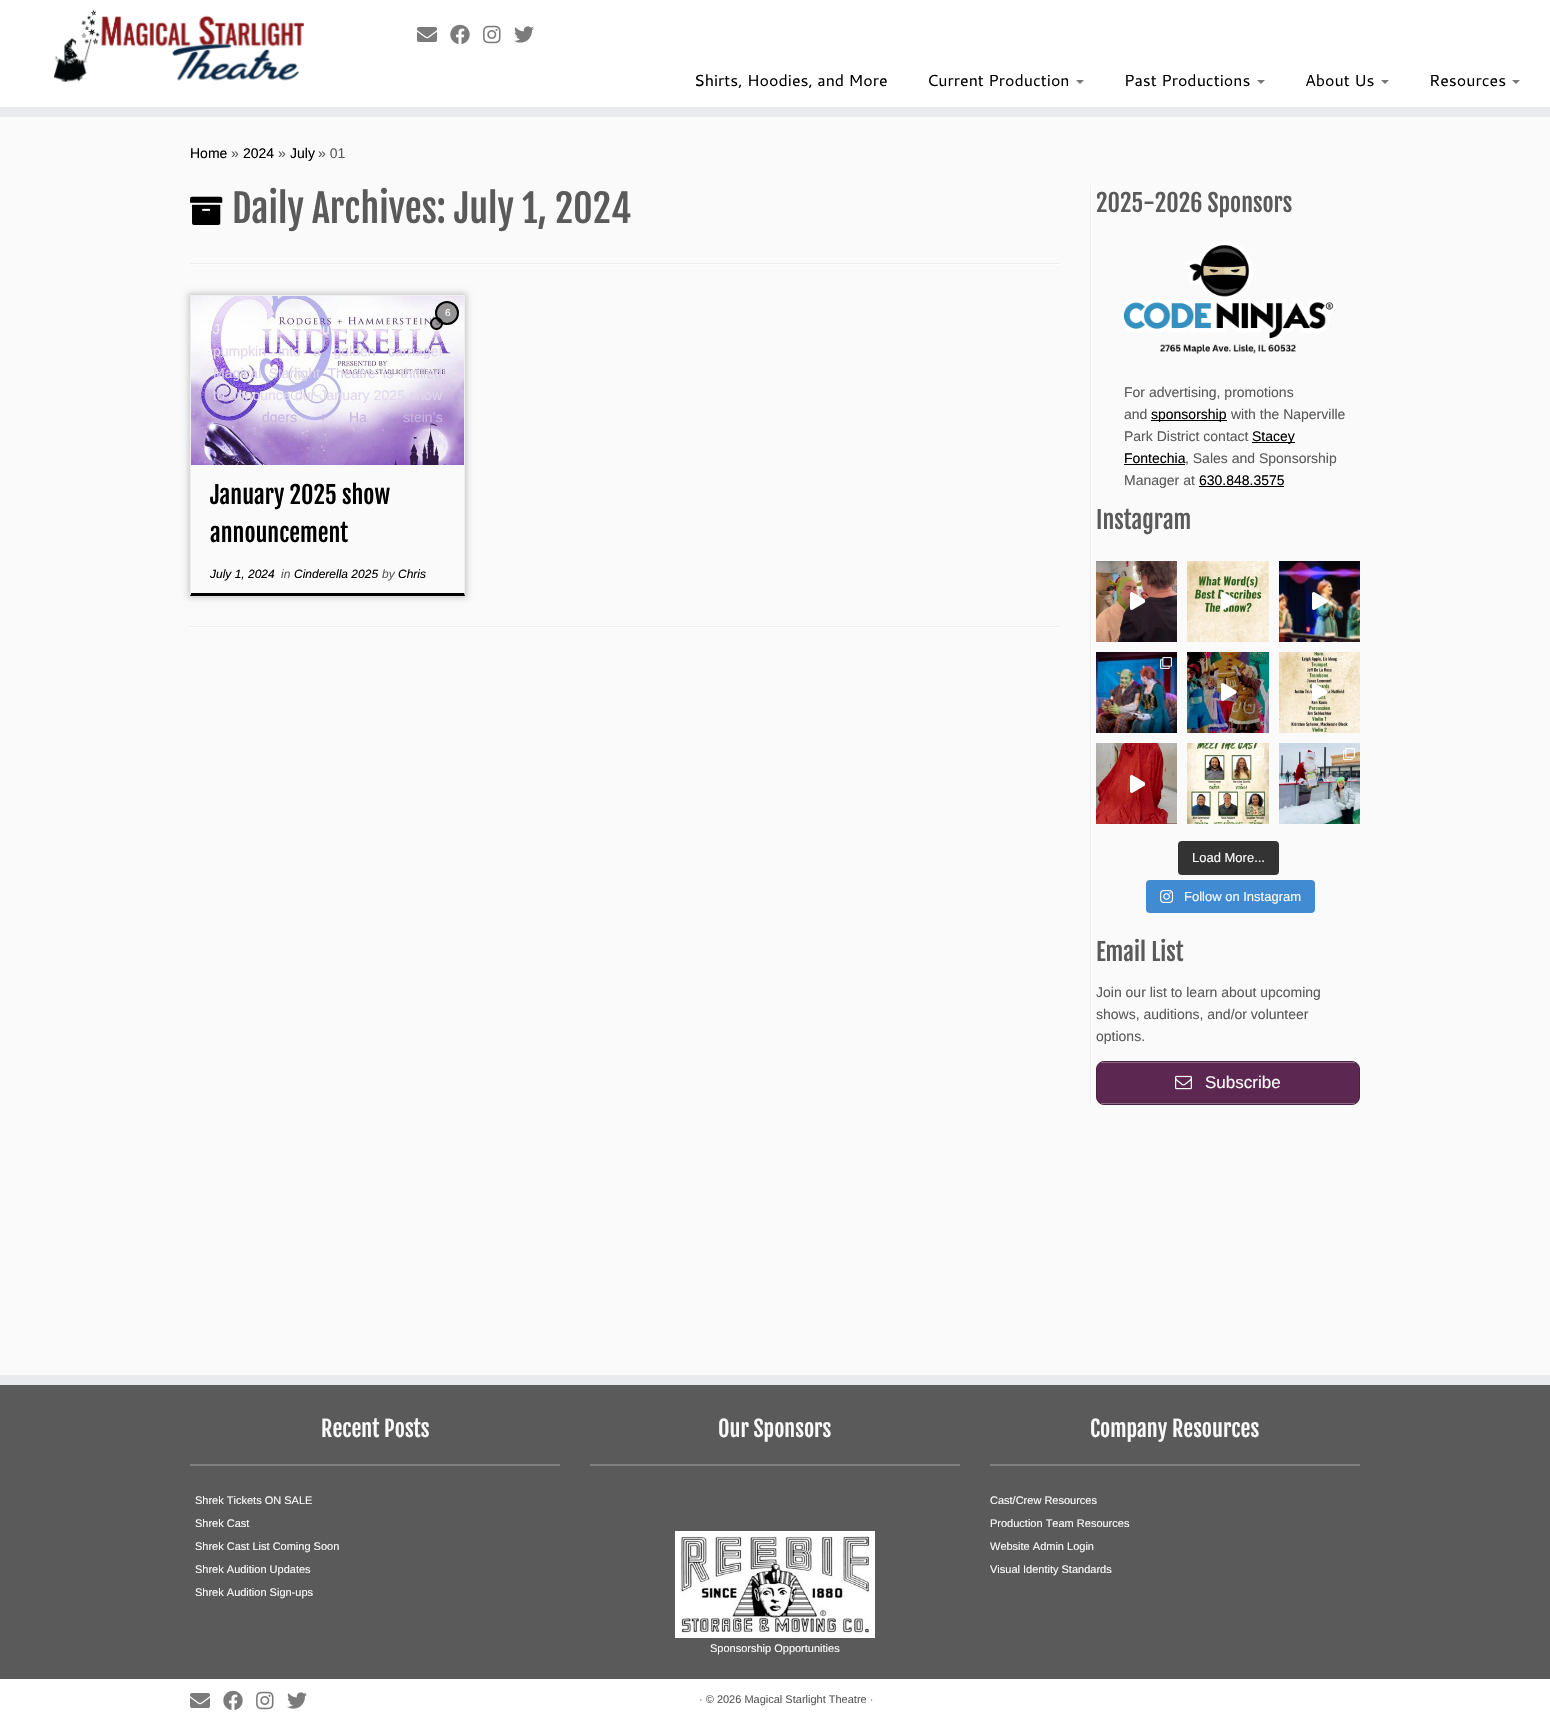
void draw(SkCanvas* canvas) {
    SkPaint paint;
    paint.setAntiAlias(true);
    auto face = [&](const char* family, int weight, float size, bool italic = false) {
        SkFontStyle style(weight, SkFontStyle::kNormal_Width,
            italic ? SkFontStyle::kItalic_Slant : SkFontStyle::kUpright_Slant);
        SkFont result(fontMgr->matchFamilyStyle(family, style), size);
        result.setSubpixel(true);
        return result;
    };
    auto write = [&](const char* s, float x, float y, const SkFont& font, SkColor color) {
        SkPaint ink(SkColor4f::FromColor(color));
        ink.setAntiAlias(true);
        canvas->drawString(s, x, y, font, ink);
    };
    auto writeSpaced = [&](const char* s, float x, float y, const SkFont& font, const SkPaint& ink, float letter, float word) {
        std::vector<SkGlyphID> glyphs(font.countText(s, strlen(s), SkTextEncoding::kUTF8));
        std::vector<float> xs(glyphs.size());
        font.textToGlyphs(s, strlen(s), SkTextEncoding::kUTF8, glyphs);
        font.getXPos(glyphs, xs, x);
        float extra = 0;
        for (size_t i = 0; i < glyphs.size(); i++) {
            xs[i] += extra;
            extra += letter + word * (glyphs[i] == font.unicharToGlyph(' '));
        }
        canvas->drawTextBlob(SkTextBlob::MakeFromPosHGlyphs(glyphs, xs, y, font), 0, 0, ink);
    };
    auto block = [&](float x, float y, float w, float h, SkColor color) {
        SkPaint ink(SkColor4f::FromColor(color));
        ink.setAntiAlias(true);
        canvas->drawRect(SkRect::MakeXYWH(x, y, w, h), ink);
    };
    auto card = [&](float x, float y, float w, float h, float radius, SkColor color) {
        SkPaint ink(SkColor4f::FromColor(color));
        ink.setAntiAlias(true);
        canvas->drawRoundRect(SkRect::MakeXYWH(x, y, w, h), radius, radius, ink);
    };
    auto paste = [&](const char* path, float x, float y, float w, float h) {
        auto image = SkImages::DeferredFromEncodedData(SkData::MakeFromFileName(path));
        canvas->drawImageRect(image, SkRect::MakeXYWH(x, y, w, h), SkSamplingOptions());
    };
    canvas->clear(SkColorSetRGB(250, 250, 250));
    block(0, 0, 1550, 107, SK_ColorWHITE);
    block(0, 107, 1550, 10, SkColorSetRGB(233, 234, 238));
    paste("pic1.png", 54, 10, 250, 72);
    paste("pic2.png", 417, 27, 20, 15);
    paste("pic3.png", 450, 24, 20, 20);
    paste("pic4.png", 483, 25, 18, 19);
    paste("pic5.png", 514, 26, 20, 17);
    auto kFont1 = face("Cantarell", 400, 16);
    write("Shirts, Hoodies, and More", 694, 86, kFont1, SK_ColorBLACK);
    write("Current Production", 927, 86, kFont1, SK_ColorBLACK);
    paint.setColor(SkColorSetRGB(119, 119, 119));
    canvas->drawPath(SkPathBuilder().moveTo(1076, 80).lineTo(1084, 80).lineTo(1080, 84).close().detach(), paint);
    write("Past Productions", 1124, 86, kFont1, SK_ColorBLACK);
    canvas->drawPath(SkPathBuilder().moveTo(1257, 80).lineTo(1265, 80).lineTo(1261, 84).close().detach(), paint);
    write("About Us", 1305, 86, kFont1, SK_ColorBLACK);
    canvas->drawPath(SkPathBuilder().moveTo(1381, 80).lineTo(1389, 80).lineTo(1385, 84).close().detach(), paint);
    write("Resources", 1429, 86, kFont1, SK_ColorBLACK);
    canvas->drawPath(SkPathBuilder().moveTo(1512, 80).lineTo(1520, 80).lineTo(1516, 84).close().detach(), paint);
    auto kFont2 = face("Liberation Sans", 400, 14);
    write("Home", 190, 158, kFont2, SK_ColorBLACK);
    write("»", 231, 158, kFont2, SkColorSetRGB(90, 90, 90));
    write("2024", 243, 158, kFont2, SK_ColorBLACK);
    write("»", 278, 158, kFont2, SkColorSetRGB(90, 90, 90));
    write("July", 290, 158, kFont2, SK_ColorBLACK);
    write("» 01", 318, 158, kFont2, SkColorSetRGB(90, 90, 90));
    paste("pic6.png", 190, 196, 33, 29);
    auto kFont3 = face("Fjalla One", 400, 38);
    write("Daily Archives: July 1, 2024", 232, 223, kFont3, SkColorSetRGB(90, 90, 90));
    block(190, 263, 870, 1, SkColorSetRGB(238, 238, 238));
    block(190, 264, 870, 1, SK_ColorWHITE);
    canvas->save();
    canvas->clipPath(SkPathBuilder(SkPathFillType::kEvenOdd).moveTo(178, 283).lineTo(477, 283).lineTo(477, 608).lineTo(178, 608).close().moveTo(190, 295).lineTo(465, 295).lineTo(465, 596).lineTo(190, 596).close().detach(), true);
    paint.setColor(SkColorSetRGB(204, 204, 204));
    paint.setMaskFilter(SkMaskFilter::MakeBlur(kNormal_SkBlurStyle, 3));
    canvas->drawRect(SkRect::MakeXYWH(188, 293, 279, 305), paint);
    paint.setMaskFilter(nullptr);
    canvas->restore();
    block(190, 295, 275, 1, SkColorSetRGB(238, 238, 238));
    paint.setColor(SkColorSetRGB(238, 238, 238));
    canvas->drawPath(SkPathBuilder().moveTo(465, 295).lineTo(465, 596).lineTo(464, 593).lineTo(464, 296).close().detach(), paint);
    paint.setColor(SK_ColorBLACK);
    canvas->drawPath(SkPathBuilder().moveTo(465, 596).lineTo(190, 596).lineTo(191, 593).lineTo(464, 593).close().detach(), paint);
    paint.setColor(SkColorSetRGB(238, 238, 238));
    canvas->drawPath(SkPathBuilder().moveTo(190, 596).lineTo(190, 295).lineTo(191, 296).lineTo(191, 593).close().detach(), paint);
    paste("pic7.png", 191, 296, 273, 169);
    paint.setColor(SkColorSetARGB(102, 0, 0, 0));
    canvas->drawCircle(447, 313, 11, paint);
    paint.setStyle(SkPaint::kStroke_Style);
    paint.setStrokeWidth(2);
    paint.setColor(SK_ColorBLACK);
    canvas->drawCircle(447, 313, 11, paint);
    auto kFont4 = face("Liberation Sans", 400, 10);
    write("6", 445, 316, kFont4, SkColorSetRGB(250, 250, 250));
    paint.setStyle(SkPaint::kFill_Style);
    paint.setColor(SkColorSetARGB(102, 0, 0, 0));
    canvas->drawCircle(436.5f, 323.5f, 5.5f, paint);
    paint.setStyle(SkPaint::kStroke_Style);
    paint.setColor(SK_ColorBLACK);
    canvas->drawCircle(436.5f, 323.5f, 5.5f, paint);
    paint.setStyle(SkPaint::kFill_Style);
    paint.setColor(SkColorSetRGB(242, 239, 247));
    writeSpaced("J", 213, 334, kFont2, paint, 0, 4);
    writeSpaced("u", 322, 334, kFont2, paint, 0, 4);
    paint.setColor(SkColorSetRGB(225, 216, 237));
    writeSpaced("pumpkin into a golden carriage!", 213, 356, kFont2, paint, 0, 8.5f);
    paint.setColor(SkColorSetRGB(219, 211, 234));
    writeSpaced("Magical Starlight Theatre is thrilled", 213, 378, kFont2, paint, 0, 3.5f);
    paint.setColor(SkColorSetRGB(225, 216, 237));
    writeSpaced("to announce our January 2025 show", 213, 400, kFont2, paint, 0, 0.5f);
    canvas->save();
    canvas->clipRect(SkRect::MakeXYWH(213, 296, 229, 127));
    paint.setColor(SkColorSetRGB(201, 180, 225));
    writeSpaced("dgers + Ha", 262, 422, kFont2, paint, 0, 18);
    canvas->restore();
    writeSpaced("stein’s", 403, 422, kFont2, paint, 0, 18);
    auto kFont5 = face("Fjalla One", 400, 24);
    write("January 2025 show", 210, 504, kFont5, SK_ColorBLACK);
    write("announcement", 210, 542, kFont5, SK_ColorBLACK);
    auto kFont6 = face("Liberation Sans", 400, 12, true);
    write("July 1, 2024", 210, 578, kFont6, SK_ColorBLACK);
    write("in", 281, 578, kFont6, SkColorSetRGB(90, 90, 90));
    write("Cinderella 2025", 294, 578, kFont6, SK_ColorBLACK);
    write("by", 382, 578, kFont6, SkColorSetRGB(90, 90, 90));
    write("Chris", 398, 578, kFont6, SK_ColorBLACK);
    block(190, 626, 870, 1, SkColorSetRGB(238, 238, 238));
    block(190, 627, 870, 1, SK_ColorWHITE);
    block(1090, 185, 1, 920, SkColorSetRGB(238, 238, 238));
    block(1091, 185, 1, 920, SK_ColorWHITE);
    write("2025-2026 Sponsors", 1096, 212, kFont5, SkColorSetRGB(90, 90, 90));
    paste("pic8.png", 1120, 241, 216, 113);
    write("For advertising, promotions", 1124, 397, kFont2, SkColorSetRGB(90, 90, 90));
    write("and", 1124, 419, kFont2, SkColorSetRGB(90, 90, 90));
    block(1151, 420, 76, 1, SK_ColorBLACK);
    write("sponsorship", 1151, 419, kFont2, SK_ColorBLACK);
    write("with the Naperville", 1231, 419, kFont2, SkColorSetRGB(90, 90, 90));
    write("Park District contact", 1124, 441, kFont2, SkColorSetRGB(90, 90, 90));
    block(1252, 442, 43, 1, SK_ColorBLACK);
    write("Stacey", 1252, 441, kFont2, SK_ColorBLACK);
    write("Fontechia", 1124, 463, kFont2, SK_ColorBLACK);
    block(1124, 464, 61, 1, SK_ColorBLACK);
    write(", Sales and Sponsorship", 1185, 463, kFont2, SkColorSetRGB(90, 90, 90));
    write("Manager at", 1124, 485, kFont2, SkColorSetRGB(90, 90, 90));
    write("630.848.3575", 1199, 485, kFont2, SK_ColorBLACK);
    block(1199, 486, 85, 1, SK_ColorBLACK);
    write("Instagram", 1096, 529, kFont5, SkColorSetRGB(90, 90, 90));
    paste("pic9.png", 1096, 561, 81, 81);
    paste("pic10.png", 1130, 592, 15, 18);
    paste("pic11.png", 1187, 561, 82, 81);
    paste("pic12.png", 1221, 592, 16, 18);
    paste("pic13.png", 1279, 561, 81, 81);
    paste("pic14.png", 1312, 592, 16, 18);
    paste("pic15.png", 1096, 652, 81, 81);
    paste("pic16.png", 1160, 657, 12, 12);
    paste("pic17.png", 1187, 652, 82, 81);
    paste("pic18.png", 1221, 683, 16, 18);
    paste("pic19.png", 1279, 652, 81, 81);
    paste("pic20.png", 1312, 683, 16, 18);
    paste("pic21.png", 1096, 743, 81, 81);
    paste("pic22.png", 1130, 775, 15, 18);
    paste("pic23.png", 1187, 743, 82, 81);
    paste("pic24.png", 1252, 748, 12, 12);
    paste("pic25.png", 1279, 743, 81, 81);
    paste("pic26.png", 1343, 748, 12, 12);
    card(1178, 841, 101, 34, 4, SkColorSetRGB(51, 51, 51));
    auto kFont7 = face("Liberation Sans", 400, 13);
    write("Load More...", 1192, 862, kFont7, SkColorSetRGB(250, 250, 250));
    card(1146, 880, 169, 33, 4, SkColorSetRGB(64, 139, 209));
    paste("pic27.png", 1160, 890, 13, 13);
    write("Follow on Instagram", 1184, 901, kFont7, SkColorSetRGB(250, 250, 250));
    write("Email List", 1096, 961, kFont5, SkColorSetRGB(90, 90, 90));
    write("Join our list to learn about upcoming", 1096, 997, kFont2, SkColorSetRGB(90, 90, 90));
    write("shows, auditions, and/or volunteer", 1096, 1019, kFont2, SkColorSetRGB(90, 90, 90));
    write("options.", 1096, 1041, kFont2, SkColorSetRGB(90, 90, 90));
    paint.setColor(SkColorSetRGB(92, 40, 81));
    canvas->drawRoundRect(SkRect::MakeXYWH(1096.5f, 1061.5f, 263, 43), 7.5f, 7.5f, paint);
    paint.setStyle(SkPaint::kStroke_Style);
    paint.setStrokeWidth(1);
    paint.setColor(SkColorSetRGB(74, 32, 65));
    canvas->drawRoundRect(SkRect::MakeXYWH(1096.5f, 1061.5f, 263, 43), 7.5f, 7.5f, paint);
    block(1101, 1062, 254, 1, SkColorSetRGB(141, 105, 134));
    block(1101, 1103, 254, 1, SkColorSetRGB(141, 105, 134));
    paste("pic28.png", 1175, 1075, 17, 15);
    auto kFont8 = face("Liberation Sans", 400, 17);
    write("Subscribe", 1205, 1088, kFont8, SkColorSetRGB(250, 250, 250));
    block(0, 1385, 1550, 294, SkColorSetRGB(90, 90, 90));
    block(0, 1375, 1550, 10, SkColorSetRGB(233, 234, 238));
    auto kFont9 = face("Fjalla One", 400, 22);
    write("Recent Posts", 321, 1437, kFont9, SkColorSetRGB(250, 250, 250));
    block(190, 1464, 370, 2, SkColorSetRGB(128, 128, 128));
    auto kFont10 = face("Liberation Sans", 400, 11);
    write("Shrek Tickets ON SALE", 195, 1504, kFont10, SkColorSetRGB(250, 250, 250));
    write("Shrek Cast", 195, 1527, kFont10, SkColorSetRGB(250, 250, 250));
    write("Shrek Cast List Coming Soon", 195, 1550, kFont10, SkColorSetRGB(250, 250, 250));
    write("Shrek Audition Updates", 195, 1573, kFont10, SkColorSetRGB(250, 250, 250));
    write("Shrek Audition Sign-ups", 195, 1596, kFont10, SkColorSetRGB(250, 250, 250));
    write("Our Sponsors", 718, 1437, kFont9, SkColorSetRGB(250, 250, 250));
    block(590, 1464, 370, 2, SkColorSetRGB(128, 128, 128));
    paste("pic29.png", 675, 1531, 200, 107);
    write("Sponsorship Opportunities", 710, 1652, kFont10, SkColorSetRGB(250, 250, 250));
    write("Company Resources", 1090, 1437, kFont9, SkColorSetRGB(250, 250, 250));
    block(990, 1464, 370, 2, SkColorSetRGB(128, 128, 128));
    write("Cast/Crew Resources", 990, 1504, kFont10, SkColorSetRGB(250, 250, 250));
    write("Production Team Resources", 990, 1527, kFont10, SkColorSetRGB(250, 250, 250));
    write("Website Admin Login", 990, 1550, kFont10, SkColorSetRGB(250, 250, 250));
    write("Visual Identity Standards", 990, 1573, kFont10, SkColorSetRGB(250, 250, 250));
    block(0, 1679, 1550, 52, SK_ColorWHITE);
    paste("pic2.png", 190, 1693, 20, 15);
    paste("pic3.png", 223, 1690, 20, 20);
    paste("pic4.png", 256, 1691, 18, 19);
    paste("pic5.png", 287, 1692, 20, 17);
    write("· © 2026 Magical Starlight Theatre ·", 699, 1703, kFont10, SkColorSetRGB(90, 90, 90));
}
